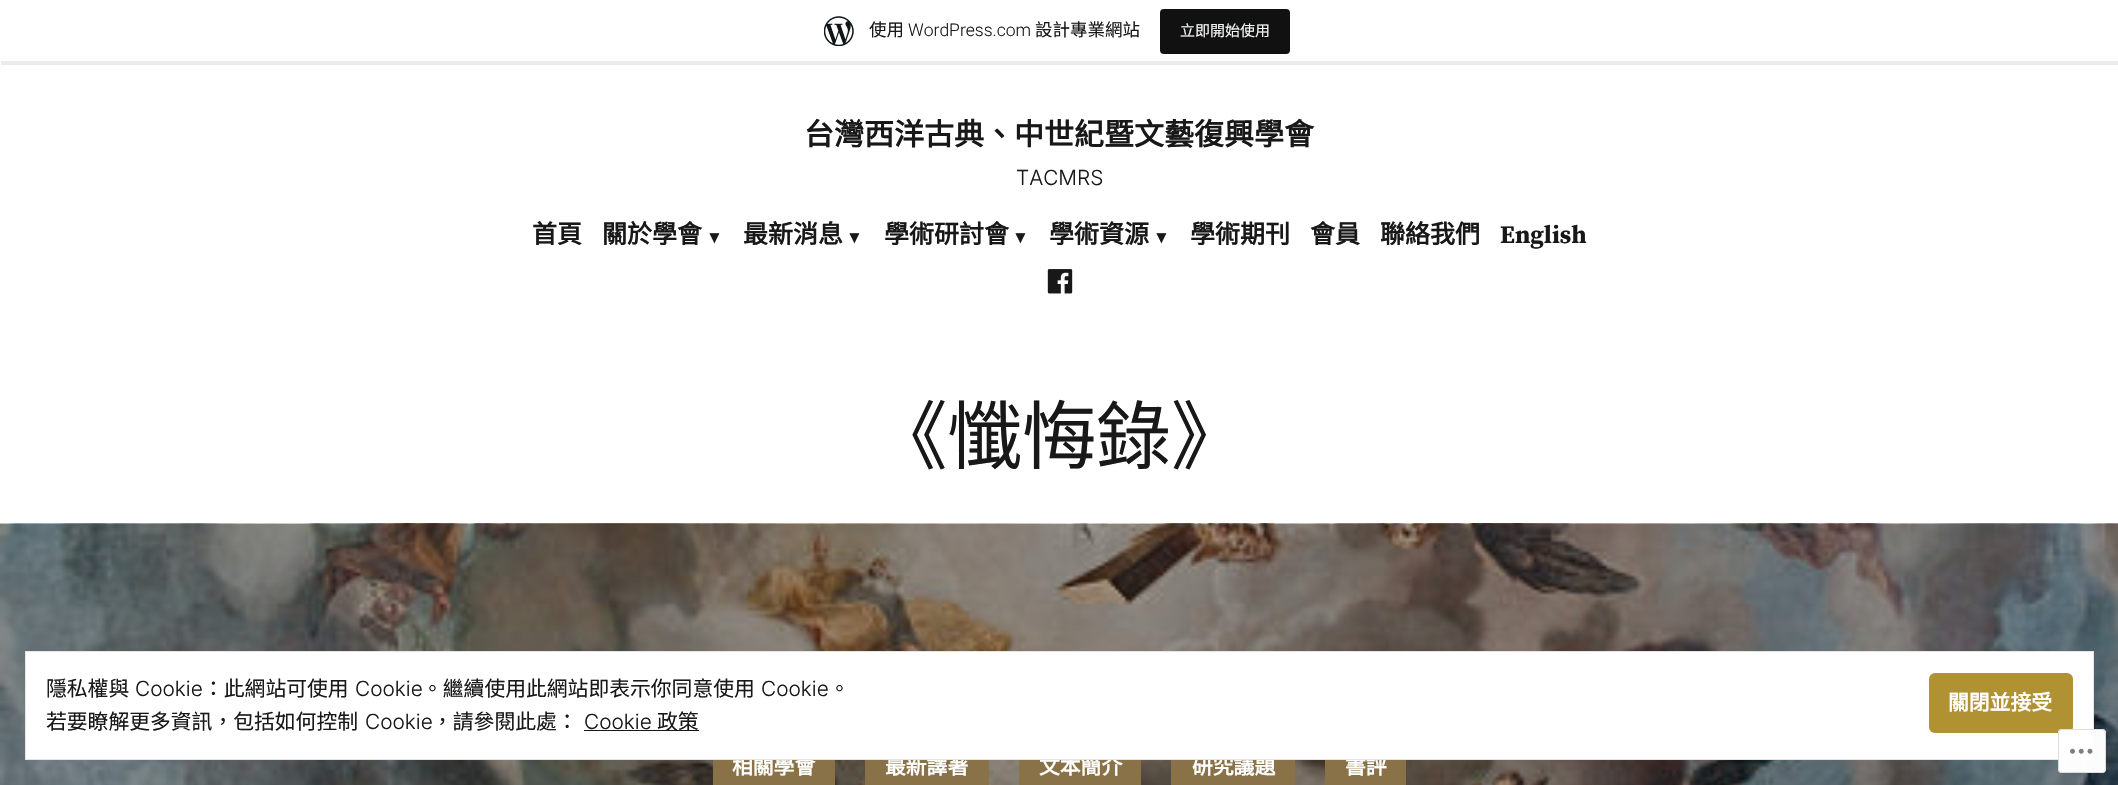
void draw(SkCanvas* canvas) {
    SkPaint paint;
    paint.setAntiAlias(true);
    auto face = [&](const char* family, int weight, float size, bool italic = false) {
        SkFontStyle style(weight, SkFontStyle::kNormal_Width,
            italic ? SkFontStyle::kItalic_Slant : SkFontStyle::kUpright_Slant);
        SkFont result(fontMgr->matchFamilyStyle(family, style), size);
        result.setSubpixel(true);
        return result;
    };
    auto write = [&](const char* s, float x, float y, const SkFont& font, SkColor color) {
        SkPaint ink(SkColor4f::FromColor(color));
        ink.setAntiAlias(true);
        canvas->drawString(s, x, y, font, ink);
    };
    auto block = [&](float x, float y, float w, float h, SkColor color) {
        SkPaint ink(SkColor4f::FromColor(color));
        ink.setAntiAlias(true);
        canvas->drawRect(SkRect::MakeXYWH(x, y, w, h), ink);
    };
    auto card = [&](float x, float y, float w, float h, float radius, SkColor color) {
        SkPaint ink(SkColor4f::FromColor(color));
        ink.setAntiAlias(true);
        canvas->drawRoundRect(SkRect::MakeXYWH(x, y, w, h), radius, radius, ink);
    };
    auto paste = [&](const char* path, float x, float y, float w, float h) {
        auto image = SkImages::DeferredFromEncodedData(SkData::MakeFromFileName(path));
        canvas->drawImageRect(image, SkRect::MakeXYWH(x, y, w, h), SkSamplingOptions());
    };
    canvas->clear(SK_ColorWHITE);
    paint.setColor(SkColorSetARGB(20, 0, 0, 0));
    canvas->drawPath(SkPathBuilder().moveTo(1, 61).lineTo(1, 65).lineTo(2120, 65).lineTo(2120, 4).lineTo(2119, 4).lineTo(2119, 61).close().detach(), paint);
    paste("pic1.png", 824, 16, 30, 30);
    auto kFont1 = face("Noto Sans CJK TC", 400, 17.5f);
    write("使用", 869, 36, kFont1, SkColorSetRGB(24, 24, 24));
    auto kFont2 = face("Roboto", 300, 17.5f);
    write("WordPress.com", 908, 36, kFont2, SkColorSetRGB(24, 24, 24));
    write("設計專業網站", 1035, 36, kFont1, SkColorSetRGB(24, 24, 24));
    card(1160, 9, 130, 45, 4, SkColorSetRGB(17, 17, 17));
    auto kFont3 = face("Noto Sans CJK TC", 400, 15);
    write("立即開始使用", 1180, 36, kFont3, SkColorSetRGB(246, 247, 247));
    auto kFont4 = face("Noto Sans CJK TC", 700, 30);
    write("台灣西洋古典、中世紀暨文藝復興學會", 804, 145, kFont4, SkColorSetRGB(24, 24, 24));
    auto kFont5 = face("Inter", 300, 20.8f);
    write("TACMRS", 1016, 185, kFont5, SkColorSetRGB(24, 24, 24));
    auto kFont6 = face("Noto Sans CJK TC", 700, 25);
    write("首頁", 532, 243, kFont6, SkColorSetRGB(24, 24, 24));
    write("關於學會", 602, 243, kFont6, SkColorSetRGB(24, 24, 24));
    auto kFont7 = face("Liberation Serif", 700, 17);
    write("▼", 706, 243, kFont7, SkColorSetRGB(24, 24, 24));
    write("最新消息", 743, 243, kFont6, SkColorSetRGB(24, 24, 24));
    write("▼", 846, 243, kFont7, SkColorSetRGB(24, 24, 24));
    write("學術研討會", 884, 243, kFont6, SkColorSetRGB(24, 24, 24));
    write("▼", 1012, 243, kFont7, SkColorSetRGB(24, 24, 24));
    write("學術資源", 1049, 243, kFont6, SkColorSetRGB(24, 24, 24));
    write("▼", 1153, 243, kFont7, SkColorSetRGB(24, 24, 24));
    write("學術期刊", 1190, 243, kFont6, SkColorSetRGB(24, 24, 24));
    write("會員", 1310, 243, kFont6, SkColorSetRGB(24, 24, 24));
    write("聯絡我們", 1380, 243, kFont6, SkColorSetRGB(24, 24, 24));
    auto kFont8 = face("Source Serif Pro", 700, 25);
    write("English", 1500, 243, kFont8, SkColorSetRGB(24, 24, 24));
    paste("pic2.png", 1047, 269, 26, 25);
    auto kFont9 = face("Noto Sans CJK TC", 400, 74.5f);
    write("《懺悔錄》", 873, 463, kFont9, SkColorSetRGB(24, 24, 24));
    paste("pic3.png", 0, 523, 2118, 262);
    block(713, 760, 122, 25, SkColorSetRGB(137, 114, 72));
    auto kFont10 = face("Noto Sans CJK TC", 700, 20.8f);
    write("相關學會", 732, 774, kFont10, SK_ColorWHITE);
    block(865, 760, 124, 25, SkColorSetRGB(137, 114, 72));
    write("最新譯著", 885, 774, kFont10, SK_ColorWHITE);
    block(1019, 760, 122, 25, SkColorSetRGB(137, 114, 72));
    write("文本簡介", 1039, 774, kFont10, SK_ColorWHITE);
    block(1171, 760, 124, 25, SkColorSetRGB(137, 114, 72));
    write("研究議題", 1192, 774, kFont10, SK_ColorWHITE);
    block(1325, 760, 81, 25, SkColorSetRGB(137, 114, 72));
    write("書評", 1345, 774, kFont10, SK_ColorWHITE);
    paint.setColor(SK_ColorWHITE);
    canvas->drawRect(SkRect::MakeXYWH(25.5f, 651.5f, 2068, 108), paint);
    paint.setStyle(SkPaint::kStroke_Style);
    paint.setStrokeWidth(1);
    paint.setColor(SkColorSetRGB(229, 229, 229));
    canvas->drawRect(SkRect::MakeXYWH(25.5f, 651.5f, 2068, 108), paint);
    auto kFont11 = face("Noto Sans CJK TC", 400, 20.8f);
    write("隱私權與", 46, 696, kFont11, SkColorSetRGB(24, 24, 24));
    write("Cookie", 135, 696, kFont5, SkColorSetRGB(24, 24, 24));
    write("：此網站可使用", 203, 696, kFont11, SkColorSetRGB(24, 24, 24));
    write("Cookie", 355, 696, kFont5, SkColorSetRGB(24, 24, 24));
    write("。繼續使用此網站即表示你同意使用", 422, 696, kFont11, SkColorSetRGB(24, 24, 24));
    write("Cookie", 761, 696, kFont5, SkColorSetRGB(24, 24, 24));
    write("。", 829, 696, kFont11, SkColorSetRGB(24, 24, 24));
    card(1929, 673, 144, 60, 6, SkColorSetRGB(177, 146, 51));
    write("關閉並接受", 1948, 710, kFont10, SK_ColorWHITE);
    write("若要瞭解更多資訊，包括如何控制", 46, 729, kFont11, SkColorSetRGB(24, 24, 24));
    write("Cookie", 365, 729, kFont5, SkColorSetRGB(24, 24, 24));
    write("，請參閱此處：", 432, 729, kFont11, SkColorSetRGB(24, 24, 24));
    write("Cookie", 584, 729, kFont5, SkColorSetRGB(24, 24, 24));
    block(584, 730, 115, 1, SkColorSetRGB(24, 24, 24));
    write("政策", 657, 729, kFont11, SkColorSetRGB(24, 24, 24));
    card(2058, 729, 48, 44, 4, SkColorSetARGB(250, 255, 255, 255));
    paint.setColor(SkColorSetARGB(250, 220, 220, 222));
    canvas->drawRoundRect(SkRect::MakeXYWH(2058.5f, 729.5f, 47, 43), 3.5f, 3.5f, paint);
    paste("pic4.png", 2070, 748, 23, 6);
}
